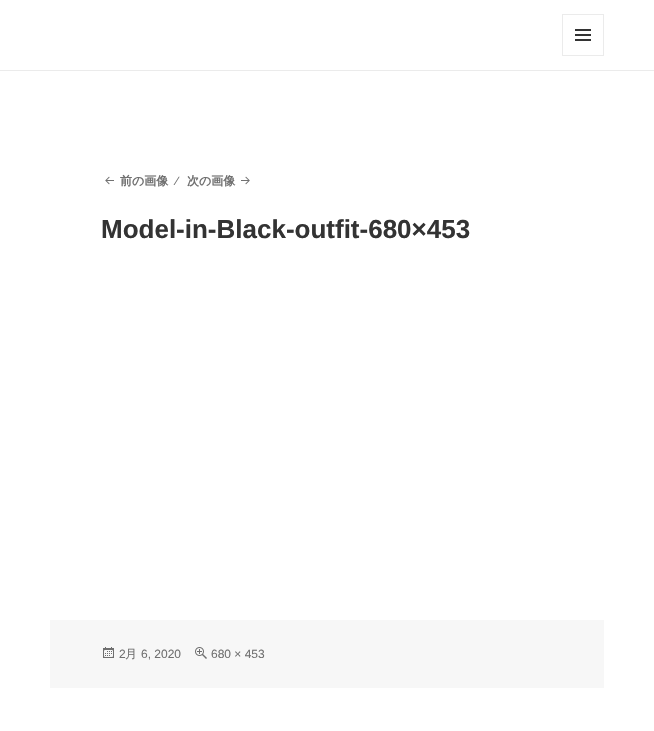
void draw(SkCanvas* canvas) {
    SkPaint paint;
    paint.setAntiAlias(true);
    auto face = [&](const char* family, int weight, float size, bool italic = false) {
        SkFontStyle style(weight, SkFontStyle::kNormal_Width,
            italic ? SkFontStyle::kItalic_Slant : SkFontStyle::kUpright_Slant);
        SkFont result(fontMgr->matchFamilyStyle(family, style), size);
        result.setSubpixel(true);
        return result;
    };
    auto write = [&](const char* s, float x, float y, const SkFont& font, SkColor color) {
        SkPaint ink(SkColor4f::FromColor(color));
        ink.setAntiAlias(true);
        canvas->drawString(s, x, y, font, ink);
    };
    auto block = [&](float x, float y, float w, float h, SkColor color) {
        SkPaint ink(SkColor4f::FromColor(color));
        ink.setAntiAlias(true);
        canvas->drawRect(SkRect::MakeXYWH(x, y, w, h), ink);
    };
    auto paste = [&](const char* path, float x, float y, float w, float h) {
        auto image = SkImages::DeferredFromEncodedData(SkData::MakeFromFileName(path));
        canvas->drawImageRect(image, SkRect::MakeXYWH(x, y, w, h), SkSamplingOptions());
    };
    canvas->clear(SK_ColorWHITE);
    block(0, 70, 654, 1, SkColorSetRGB(235, 235, 235));
    paint.setStyle(SkPaint::kStroke_Style);
    paint.setStrokeWidth(1);
    paint.setColor(SkColorSetRGB(235, 235, 235));
    canvas->drawRect(SkRect::MakeXYWH(562.5f, 14.5f, 41, 41), paint);
    paste("pic1.png", 575, 29, 16, 12);
    paste("pic2.png", 105, 176, 9, 9);
    auto kFont1 = face("WenQuanYi Zen Hei", 700, 12);
    write("前の画像", 120, 185, kFont1, SkColorSetRGB(112, 112, 112));
    auto kFont2 = face("Liberation Sans", 400, 12);
    write("∕", 176, 185, kFont2, SkColorSetRGB(112, 112, 112));
    write("次の画像", 187, 185, kFont1, SkColorSetRGB(112, 112, 112));
    paste("pic3.png", 241, 176, 9, 9);
    auto kFont3 = face("Liberation Sans", 700, 26);
    write("Model-in-Black-outfit-680×453", 101, 238, kFont3, SkColorSetRGB(51, 51, 51));
    block(50, 620, 554, 68, SkColorSetRGB(247, 247, 247));
    paste("pic4.png", 103, 647, 11, 11);
    write("2", 119, 658, kFont2, SkColorSetRGB(112, 112, 112));
    auto kFont4 = face("WenQuanYi Zen Hei", 500, 12);
    write("月", 125, 658, kFont4, SkColorSetRGB(112, 112, 112));
    write("6, 2020", 141, 658, kFont2, SkColorSetRGB(112, 112, 112));
    paste("pic5.png", 195, 647, 12, 12);
    write("680 × 453", 211, 658, kFont2, SkColorSetRGB(112, 112, 112));
}
